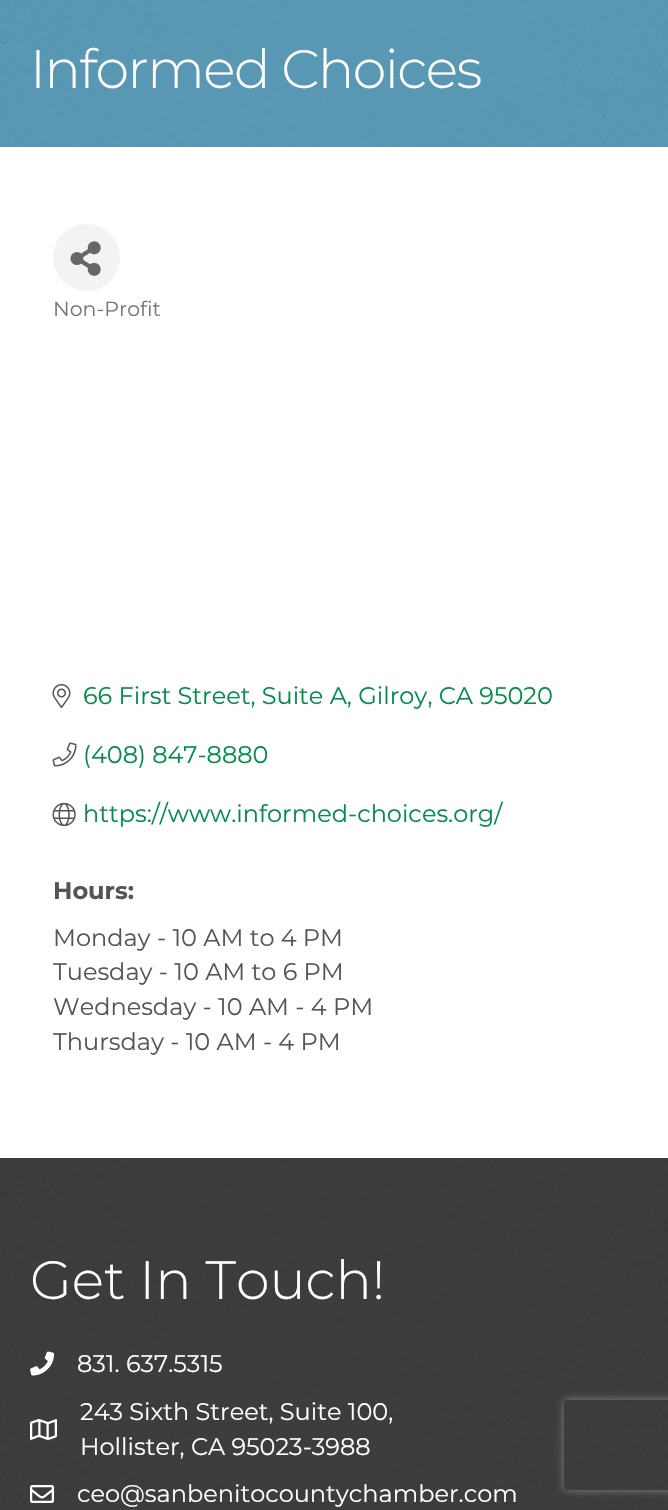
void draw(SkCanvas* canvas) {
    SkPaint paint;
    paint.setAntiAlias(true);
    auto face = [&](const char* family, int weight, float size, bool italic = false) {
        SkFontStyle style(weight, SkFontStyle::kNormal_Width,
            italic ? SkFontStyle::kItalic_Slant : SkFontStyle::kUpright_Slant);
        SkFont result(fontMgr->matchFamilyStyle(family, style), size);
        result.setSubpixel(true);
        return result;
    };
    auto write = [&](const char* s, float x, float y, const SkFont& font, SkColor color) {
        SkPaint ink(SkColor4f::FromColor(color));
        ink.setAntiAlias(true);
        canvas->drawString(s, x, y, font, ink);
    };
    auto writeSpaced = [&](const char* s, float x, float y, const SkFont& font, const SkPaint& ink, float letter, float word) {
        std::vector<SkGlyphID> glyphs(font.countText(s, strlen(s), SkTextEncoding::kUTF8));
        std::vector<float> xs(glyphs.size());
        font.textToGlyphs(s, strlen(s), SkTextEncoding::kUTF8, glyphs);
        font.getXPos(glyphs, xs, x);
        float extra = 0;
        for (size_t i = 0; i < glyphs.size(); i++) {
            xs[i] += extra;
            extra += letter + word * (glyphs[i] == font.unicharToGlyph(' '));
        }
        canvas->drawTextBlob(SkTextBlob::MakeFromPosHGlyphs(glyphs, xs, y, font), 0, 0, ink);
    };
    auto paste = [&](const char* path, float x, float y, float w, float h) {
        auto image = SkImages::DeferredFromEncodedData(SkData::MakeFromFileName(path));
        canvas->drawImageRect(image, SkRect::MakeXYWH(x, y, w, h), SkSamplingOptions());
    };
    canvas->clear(SK_ColorWHITE);
    paste("pic1.png", 0, 0, 668, 147);
    auto kFont1 = face("Montserrat", 300, 54);
    paint.setColor(SK_ColorWHITE);
    writeSpaced("Informed Choices", 30, 88, kFont1, paint, -1.5f, 0);
    paint.setColor(SkColorSetRGB(243, 243, 243));
    canvas->drawCircle(86.5f, 257.5f, 33.5f, paint);
    paste("pic2.png", 70, 241, 31, 35);
    auto kFont2 = face("Montserrat", 400, 20.5f);
    write("Non-Profit", 53, 316, kFont2, SkColorSetRGB(119, 119, 119));
    paste("pic3.png", 52, 684, 19, 24);
    auto kFont3 = face("Montserrat", 400, 24);
    write("66 First Street, Suite A, Gilroy, CA 95020", 83, 704, kFont3, SkColorSetRGB(0, 141, 73));
    paste("pic4.png", 52, 742, 25, 25);
    write("(408) 847-8880", 83, 763, kFont3, SkColorSetRGB(0, 141, 73));
    paste("pic5.png", 52, 802, 24, 25);
    write("https://www.informed-choices.org/", 83, 822, kFont3, SkColorSetRGB(0, 141, 73));
    auto kFont4 = face("Montserrat", 700, 24);
    write("Hours:", 53, 899, kFont4, SkColorSetRGB(85, 85, 85));
    write("Monday - 10 AM to 4 PM", 53, 946, kFont3, SkColorSetRGB(85, 85, 85));
    write("Tuesday - 10 AM to 6 PM", 53, 980, kFont3, SkColorSetRGB(85, 85, 85));
    write("Wednesday - 10 AM - 4 PM", 53, 1015, kFont3, SkColorSetRGB(85, 85, 85));
    write("Thursday - 10 AM - 4 PM", 53, 1050, kFont3, SkColorSetRGB(85, 85, 85));
    paste("pic6.png", 0, 1158, 668, 352);
    write("Get In Touch!", 30, 1299, kFont1, SK_ColorWHITE);
    paste("pic7.png", 30, 1351, 24, 25);
    write("831. 637.5315", 77, 1372, kFont3, SK_ColorWHITE);
    paste("pic8.png", 30, 1419, 27, 21);
    write("243 Sixth Street, Suite 100,", 80, 1420, kFont3, SK_ColorWHITE);
    write("Hollister, CA 95023-3988", 80, 1455, kFont3, SK_ColorWHITE);
    paste("pic9.png", 30, 1485, 24, 18);
    write("ceo@sanbenitocountychamber.com", 77, 1502, kFont3, SK_ColorWHITE);
    canvas->save();
    canvas->clipPath(SkPathBuilder(SkPathFillType::kEvenOdd).moveTo(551, 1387).lineTo(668, 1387).lineTo(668, 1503).lineTo(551, 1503).close().moveTo(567, 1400).lineTo(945, 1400).cubicTo(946.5f, 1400, 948, 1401.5f, 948, 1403).lineTo(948, 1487).cubicTo(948, 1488.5f, 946.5f, 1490, 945, 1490).lineTo(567, 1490).cubicTo(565.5f, 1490, 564, 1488.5f, 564, 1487).lineTo(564, 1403).cubicTo(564, 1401.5f, 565.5f, 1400, 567, 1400).close().detach(), true);
    paint.setColor(SkColorSetRGB(128, 128, 128));
    paint.setMaskFilter(SkMaskFilter::MakeBlur(kNormal_SkBlurStyle, 4));
    canvas->drawRoundRect(SkRect::MakeXYWH(564, 1400, 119, 90), 3, 3, paint);
    paint.setMaskFilter(nullptr);
    canvas->restore();
}
